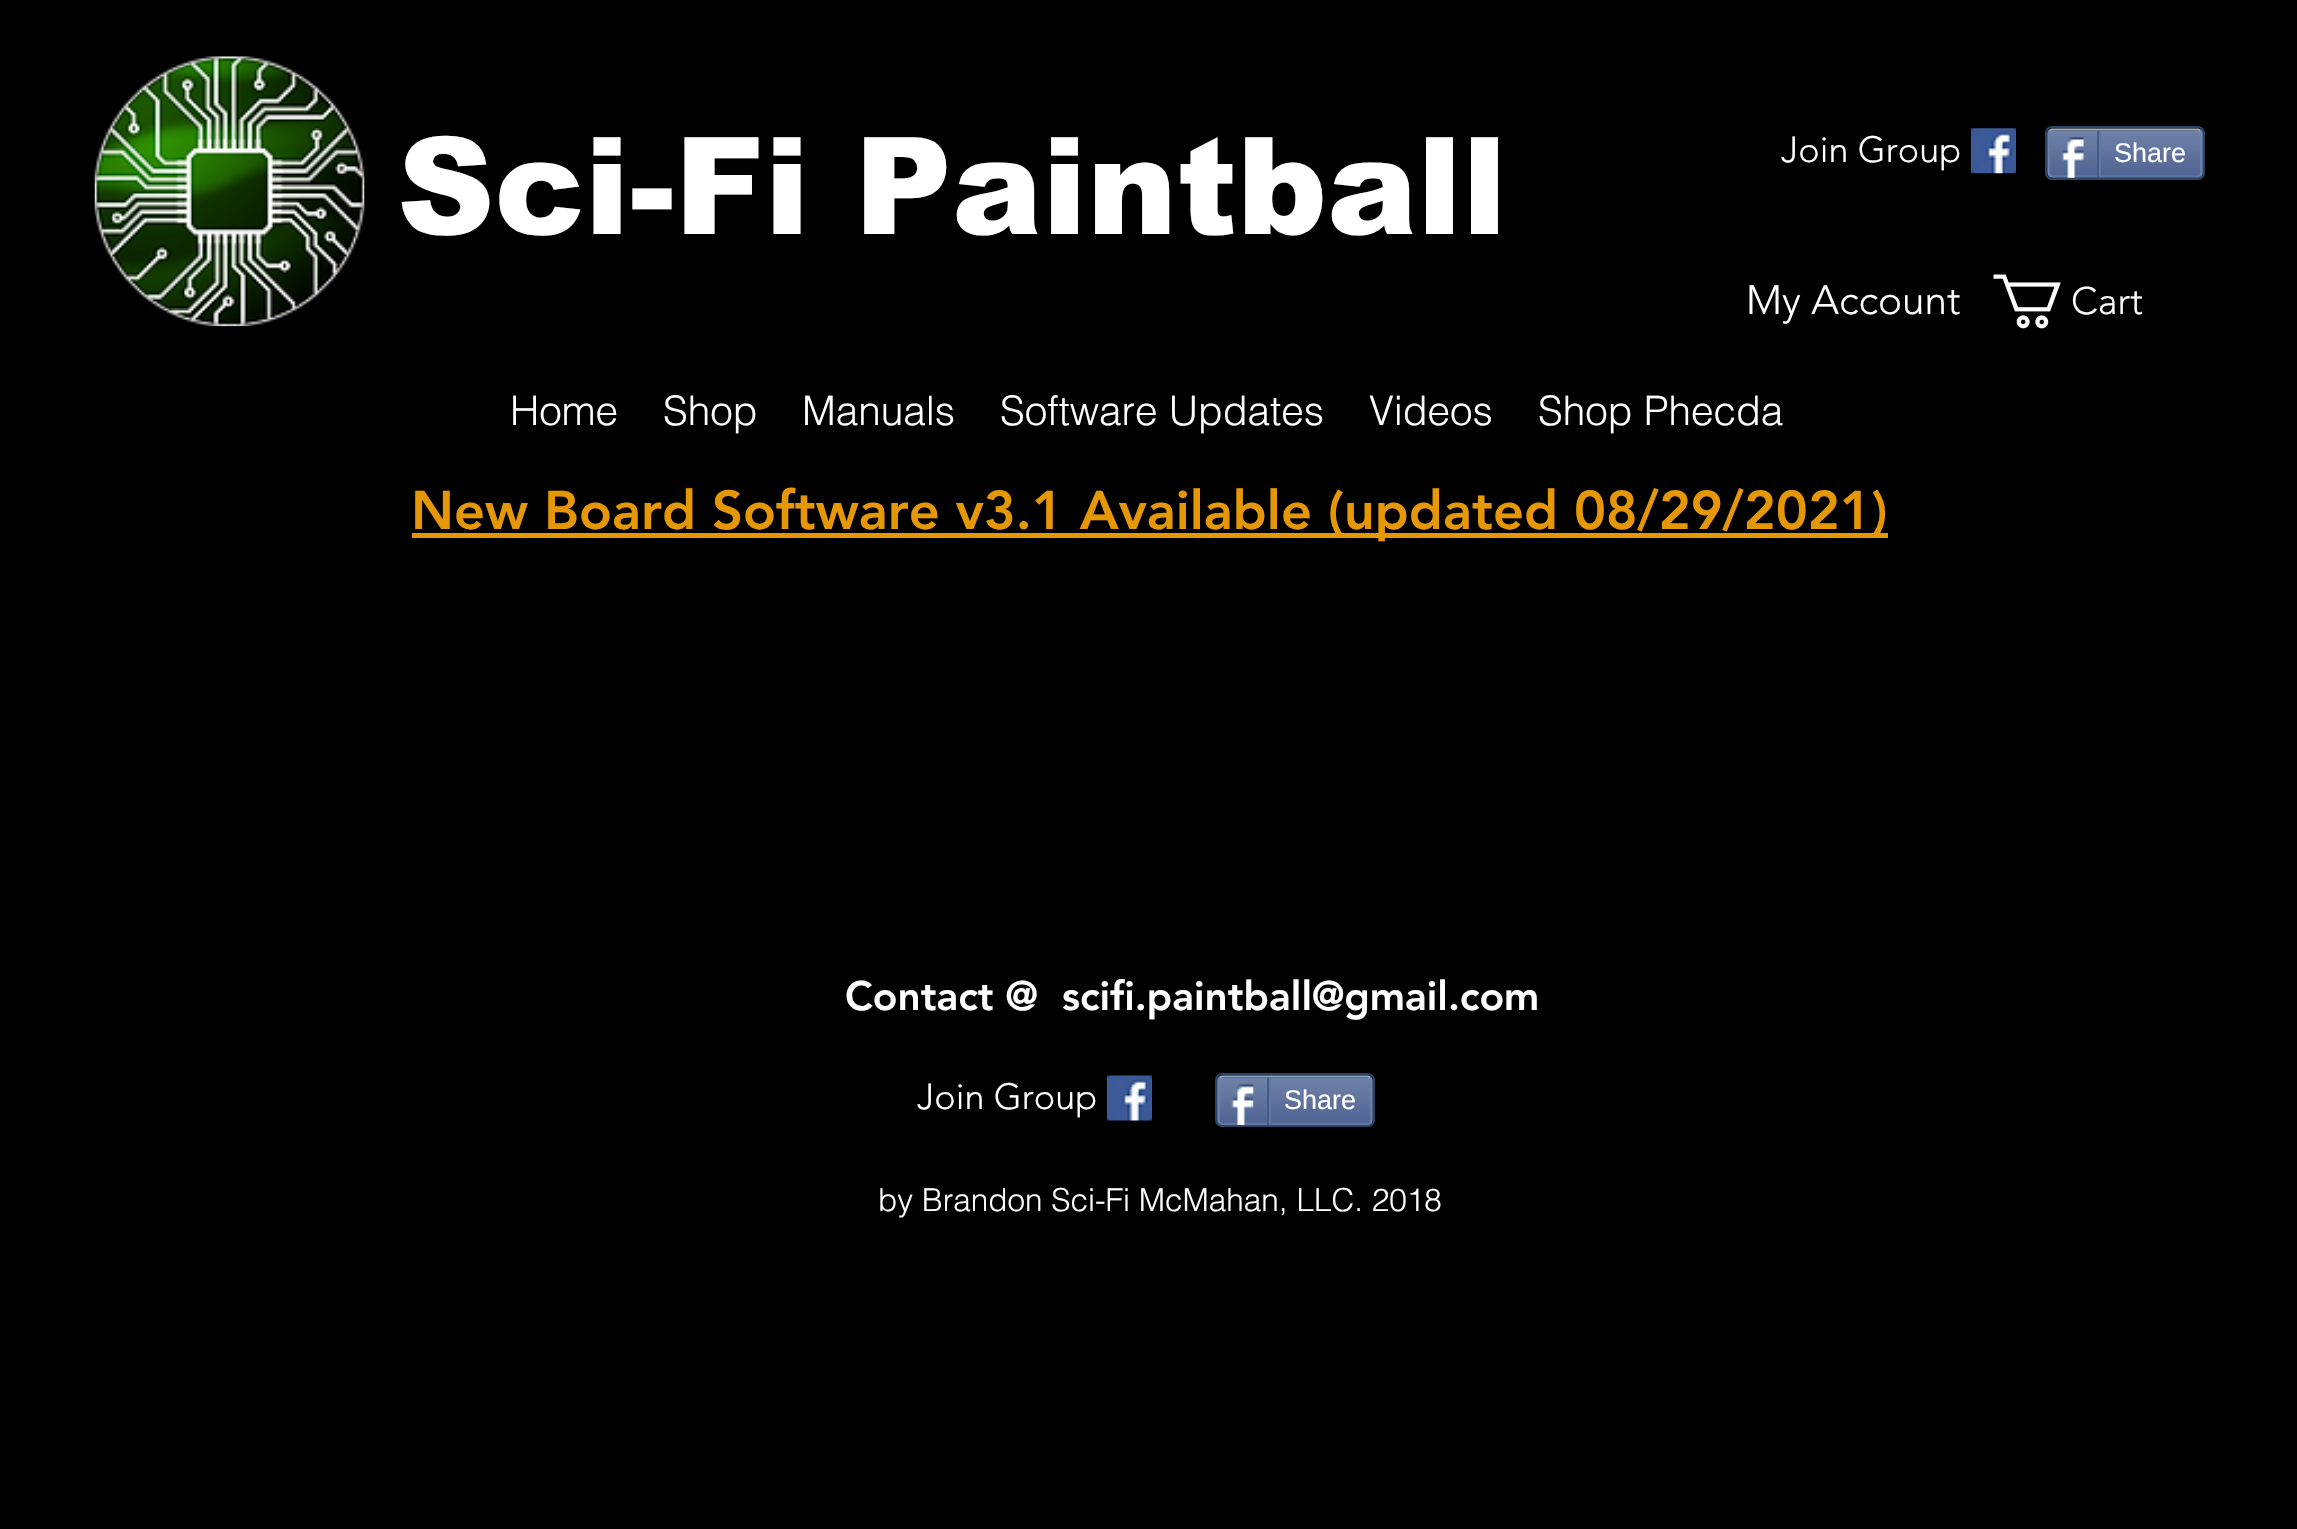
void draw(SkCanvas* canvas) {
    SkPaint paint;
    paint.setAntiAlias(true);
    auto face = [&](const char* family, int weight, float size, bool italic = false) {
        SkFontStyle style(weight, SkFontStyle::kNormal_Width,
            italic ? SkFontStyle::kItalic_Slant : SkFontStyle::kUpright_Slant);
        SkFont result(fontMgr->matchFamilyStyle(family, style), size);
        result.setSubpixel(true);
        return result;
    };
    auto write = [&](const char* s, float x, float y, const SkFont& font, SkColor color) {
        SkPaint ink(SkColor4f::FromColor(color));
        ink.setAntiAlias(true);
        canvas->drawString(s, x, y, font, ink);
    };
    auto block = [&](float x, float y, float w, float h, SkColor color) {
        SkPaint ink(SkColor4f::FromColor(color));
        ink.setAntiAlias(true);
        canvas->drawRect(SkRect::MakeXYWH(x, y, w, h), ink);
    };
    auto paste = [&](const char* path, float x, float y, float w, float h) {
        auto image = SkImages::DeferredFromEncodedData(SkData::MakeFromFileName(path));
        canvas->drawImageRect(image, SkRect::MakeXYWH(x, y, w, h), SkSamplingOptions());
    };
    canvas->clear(SK_ColorBLACK);
    paste("pic1.png", 94, 56, 271, 271);
    auto kFont1 = face("arial", 900, 135);
    write("Sci-Fi Paintball", 397, 234, kFont1, SK_ColorWHITE);
    auto kFont2 = face("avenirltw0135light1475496", 300, 40.5f);
    write("My Account", 1746, 314, kFont2, SK_ColorWHITE);
    paste("pic2.png", 1993, 274, 68, 55);
    auto kFont3 = face("avenirltw0135light1475496", 300, 38);
    write("Cart", 2071, 314, kFont3, SK_ColorWHITE);
    auto kFont4 = face("helvetica", 300, 40.5f);
    write("Home", 510, 425, kFont4, SK_ColorWHITE);
    write("Shop", 663, 425, kFont4, SK_ColorWHITE);
    write("Manuals", 802, 425, kFont4, SK_ColorWHITE);
    write("Software Updates", 1000, 425, kFont4, SK_ColorWHITE);
    write("Videos", 1369, 425, kFont4, SK_ColorWHITE);
    write("Shop Phecda", 1538, 425, kFont4, SK_ColorWHITE);
    block(412, 533, 1476, 5, SkColorSetRGB(230, 151, 5));
    auto kFont5 = face("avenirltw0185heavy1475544", 900, 54);
    write("New Board Software v3.1 Available (updated 08/29/2021)", 411, 529, kFont5, SkColorSetRGB(230, 151, 5));
    auto kFont6 = face("avenirltw0135light1475496", 300, 36);
    write("Join Group", 1781, 162, kFont6, SK_ColorWHITE);
    paste("pic3.png", 1971, 128, 45, 46);
    paint.setStyle(SkPaint::kStroke_Style);
    paint.setStrokeWidth(2);
    paint.setColor(SkColorSetRGB(45, 69, 101));
    canvas->drawRoundRect(SkRect::MakeXYWH(2046, 127, 158, 52), 6, 6, paint);
    paste("pic4.png", 2047, 130, 156, 48);
    paint.setStrokeWidth(2.2f);
    paint.setColor(SkColorSetRGB(154, 171, 198));
    canvas->drawPath(SkPathBuilder().moveTo(2049.5f, 130.5f).lineTo(2052, 129.5f).lineTo(2198, 129.5f).lineTo(2200.5f, 130.5f).detach(), paint);
    paint.setColor(SkColorSetRGB(111, 131, 173));
    canvas->drawPath(SkPathBuilder().moveTo(2200.5f, 130.5f).lineTo(2201.5f, 133).lineTo(2201.5f, 173).lineTo(2200.5f, 175.5f).detach(), paint);
    paint.setColor(SkColorSetRGB(97, 118, 163));
    canvas->drawPath(SkPathBuilder().moveTo(2200.5f, 175.5f).lineTo(2198, 176.5f).lineTo(2052, 176.5f).lineTo(2049.5f, 175.5f).detach(), paint);
    paint.setColor(SkColorSetRGB(111, 131, 173));
    canvas->drawPath(SkPathBuilder().moveTo(2049.5f, 175.5f).lineTo(2048.5f, 173).lineTo(2048.5f, 133).lineTo(2049.5f, 130.5f).detach(), paint);
    paste("pic5.png", 2061, 137, 23, 41);
    block(2097, 131, 2, 47, SkColorSetRGB(66, 94, 133));
    auto kFont7 = face("Liberation Sans", 400, 27);
    write("Share", 2114, 162, kFont7, SK_ColorWHITE);
    block(2099, 131, 2, 45, SkColorSetRGB(97, 118, 163));
    auto kFont8 = face("avenirltw0185heavy1475544", 900, 40.5f);
    write("Contact @", 845, 1010, kFont8, SK_ColorWHITE);
    write("scifi.paintball@gmail.com", 1062, 1010, kFont8, SK_ColorWHITE);
    write("Join Group", 917, 1109, kFont6, SK_ColorWHITE);
    paste("pic6.png", 1107, 1075, 45, 46);
    paint.setStrokeWidth(2);
    paint.setColor(SkColorSetRGB(45, 69, 101));
    canvas->drawRoundRect(SkRect::MakeXYWH(1216, 1074, 158, 52), 6, 6, paint);
    paste("pic7.png", 1217, 1077, 156, 48);
    paint.setStrokeWidth(2.2f);
    paint.setColor(SkColorSetRGB(154, 171, 198));
    canvas->drawPath(SkPathBuilder().moveTo(1219.5f, 1077.5f).lineTo(1222, 1076.5f).lineTo(1368, 1076.5f).lineTo(1370.5f, 1077.5f).detach(), paint);
    paint.setColor(SkColorSetRGB(111, 131, 173));
    canvas->drawPath(SkPathBuilder().moveTo(1370.5f, 1077.5f).lineTo(1371.5f, 1080).lineTo(1371.5f, 1120.5f).lineTo(1370.5f, 1123).detach(), paint);
    paint.setColor(SkColorSetRGB(97, 118, 163));
    canvas->drawPath(SkPathBuilder().moveTo(1370.5f, 1123).lineTo(1368, 1124).lineTo(1222, 1124).lineTo(1219.5f, 1123).detach(), paint);
    paint.setColor(SkColorSetRGB(111, 131, 173));
    canvas->drawPath(SkPathBuilder().moveTo(1219.5f, 1123).lineTo(1218.5f, 1120.5f).lineTo(1218.5f, 1080).lineTo(1219.5f, 1077.5f).detach(), paint);
    paste("pic8.png", 1231, 1084, 23, 41);
    block(1267, 1078, 2, 47, SkColorSetRGB(66, 94, 133));
    write("Share", 1284, 1109, kFont7, SK_ColorWHITE);
    block(1269, 1078, 2, 45, SkColorSetRGB(97, 118, 163));
    auto kFont9 = face("helvetica", 300, 31.5f);
    write("by Brandon Sci-Fi McMahan, LLC. 2018", 878, 1211, kFont9, SK_ColorWHITE);
}
